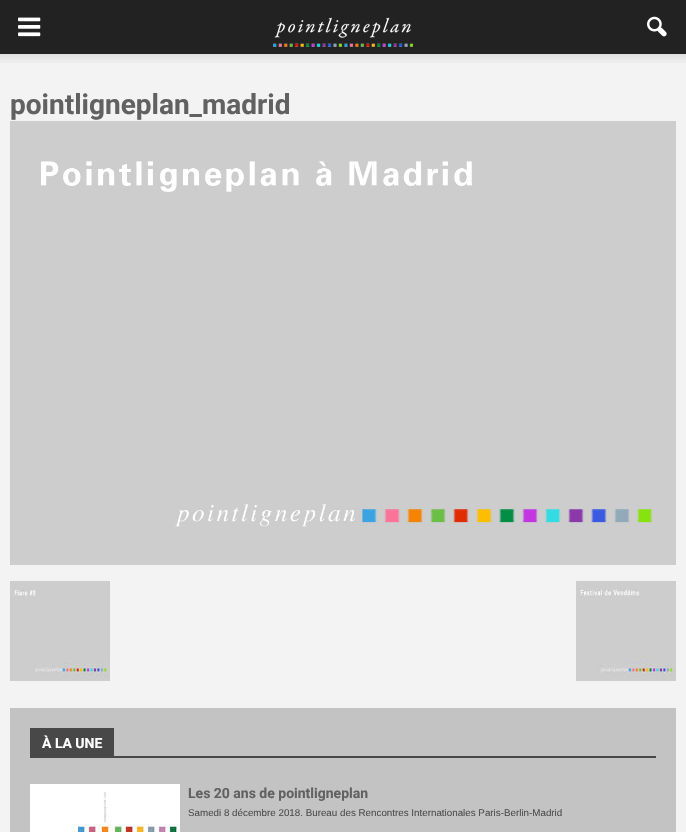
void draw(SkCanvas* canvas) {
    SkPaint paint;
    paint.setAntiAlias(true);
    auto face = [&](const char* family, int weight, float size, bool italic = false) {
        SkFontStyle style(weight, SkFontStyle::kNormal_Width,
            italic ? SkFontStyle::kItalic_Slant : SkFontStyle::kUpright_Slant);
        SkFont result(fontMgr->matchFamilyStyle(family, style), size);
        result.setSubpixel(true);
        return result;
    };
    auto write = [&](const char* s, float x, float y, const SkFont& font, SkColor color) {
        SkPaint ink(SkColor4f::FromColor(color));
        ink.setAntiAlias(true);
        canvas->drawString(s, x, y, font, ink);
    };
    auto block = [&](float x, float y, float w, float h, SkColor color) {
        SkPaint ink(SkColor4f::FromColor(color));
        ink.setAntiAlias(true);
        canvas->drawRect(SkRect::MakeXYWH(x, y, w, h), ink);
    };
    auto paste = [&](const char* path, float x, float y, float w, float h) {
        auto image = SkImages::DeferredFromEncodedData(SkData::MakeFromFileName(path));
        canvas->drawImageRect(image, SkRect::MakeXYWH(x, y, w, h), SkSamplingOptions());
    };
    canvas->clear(SkColorSetRGB(243, 243, 243));
    block(0, 0, 686, 54, SkColorSetRGB(34, 34, 34));
    paste("pic1.png", 18, 17, 23, 20);
    paste("pic2.png", 273, 17, 140, 30);
    paste("pic3.png", 647, 16, 20, 21);
    paste("pic4.png", 0, 54, 686, 9);
    auto kFont1 = face("Roboto", 700, 28);
    write("pointligneplan_madrid", 10, 114, kFont1, SkColorSetRGB(97, 97, 97));
    paste("pic5.png", 10, 121, 666, 444);
    paste("pic6.png", 10, 581, 100, 100);
    paste("pic7.png", 576, 581, 100, 100);
    block(10, 708, 666, 124, SkColorSetRGB(196, 195, 196));
    block(30, 756, 626, 2, SkColorSetRGB(72, 72, 72));
    block(30, 728, 84, 28, SkColorSetRGB(72, 72, 72));
    auto kFont2 = face("Roboto", 700, 14);
    write("À LA UNE", 42, 748, kFont2, SK_ColorWHITE);
    paste("pic8.png", 30, 784, 150, 48);
    write("Les 20 ans de pointligneplan", 188, 798, kFont2, SkColorSetRGB(97, 97, 97));
    auto kFont3 = face("Liberation Sans", 400, 9.8f);
    write("Samedi 8 décembre 2018. Bureau des Rencontres Internationales Paris-Berlin-Madrid", 188, 816, kFont3, SkColorSetRGB(78, 78, 78));
}
